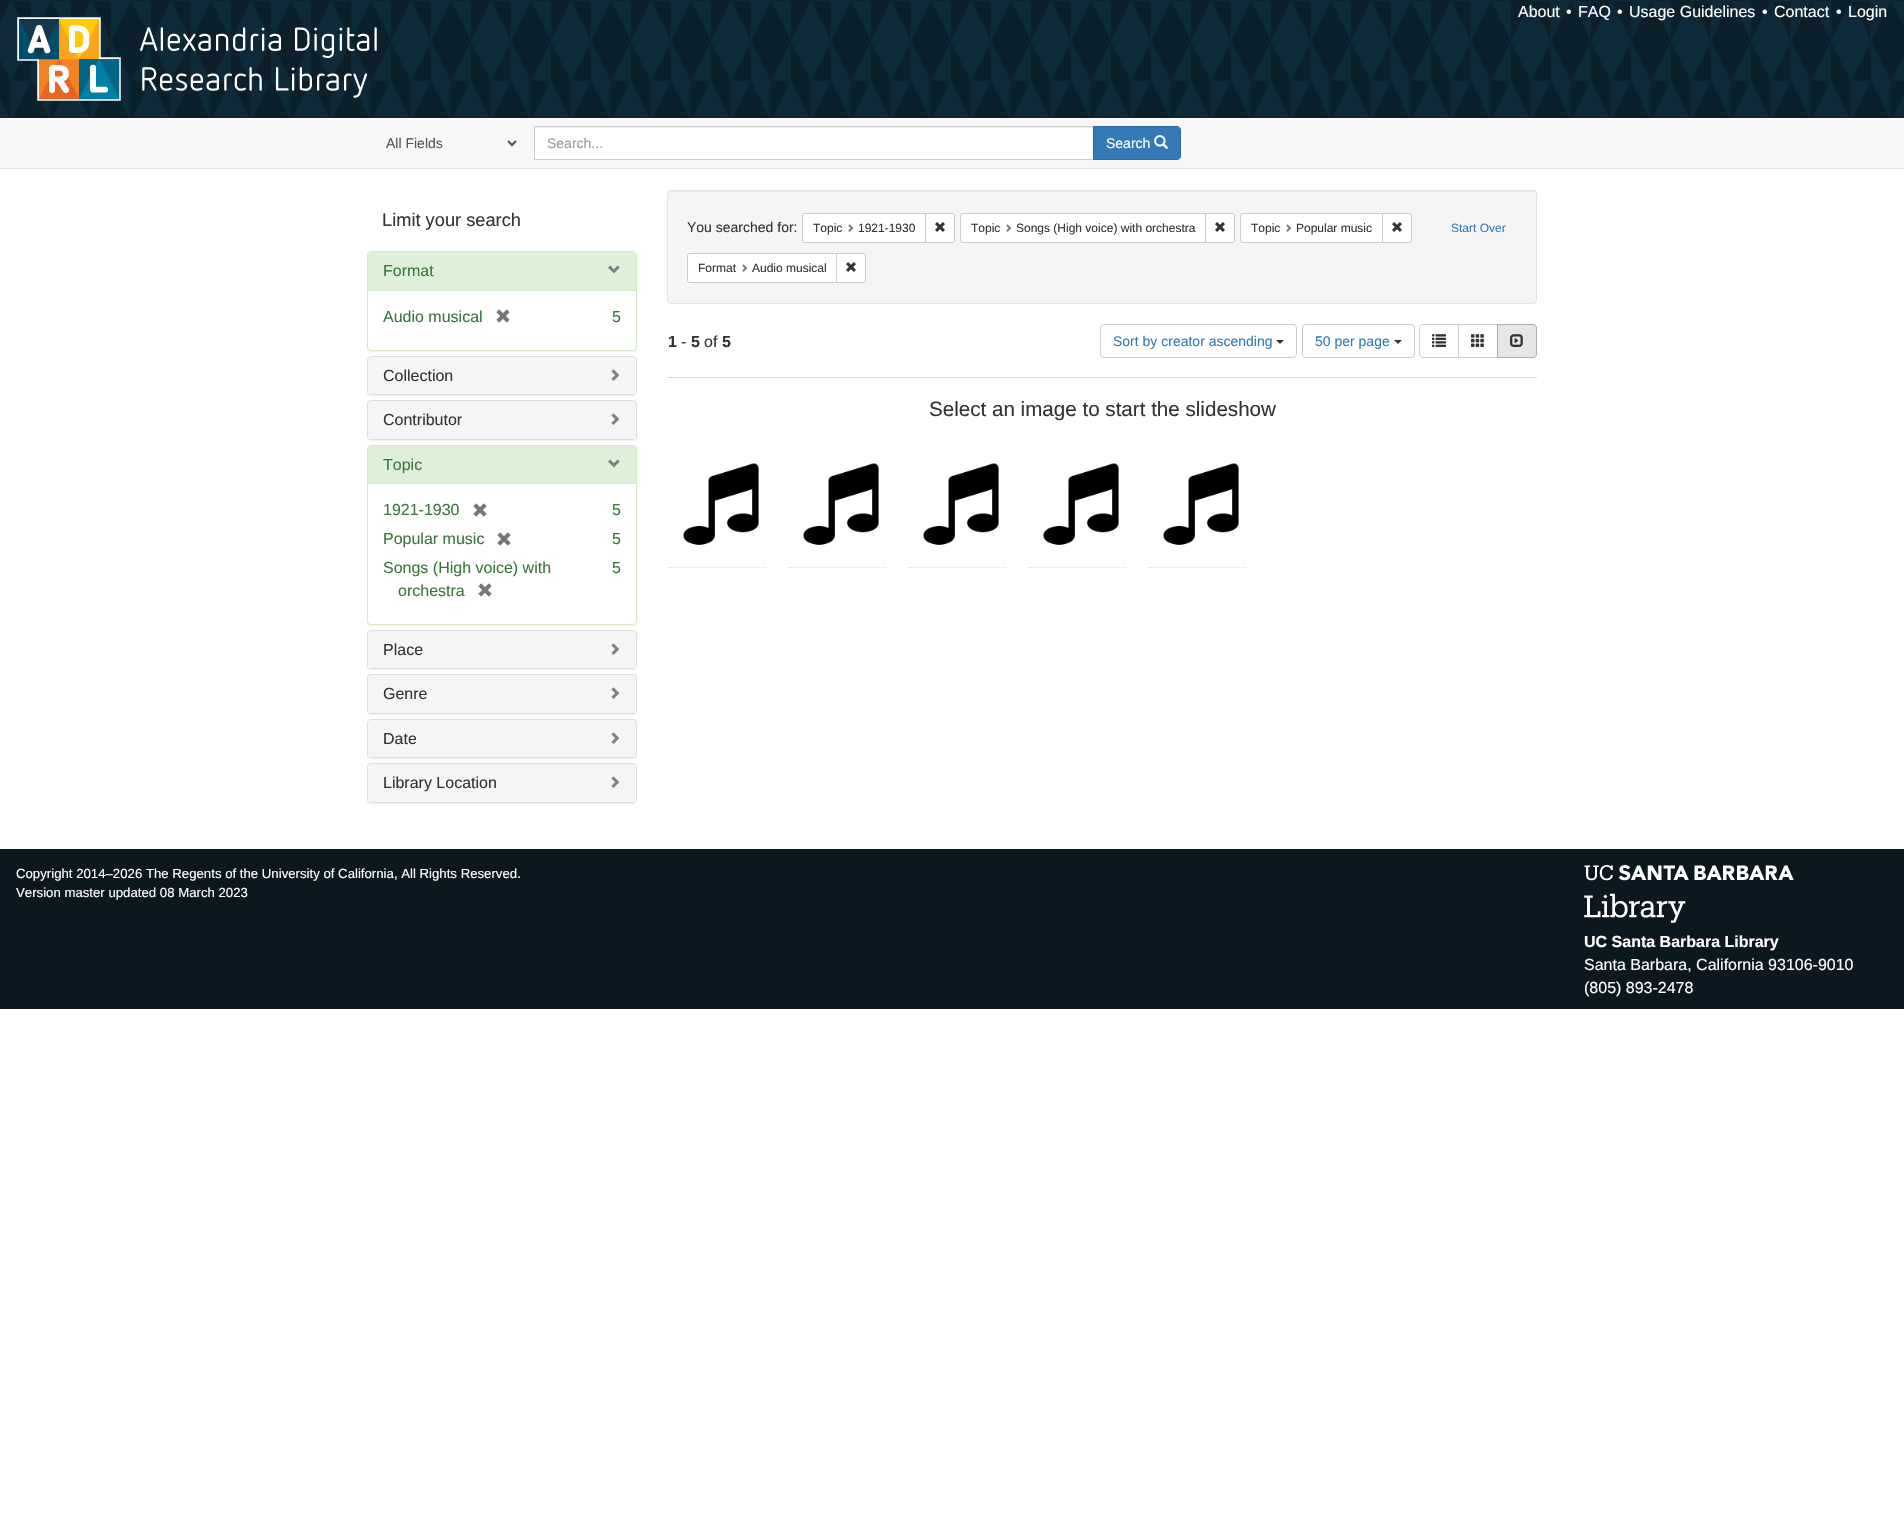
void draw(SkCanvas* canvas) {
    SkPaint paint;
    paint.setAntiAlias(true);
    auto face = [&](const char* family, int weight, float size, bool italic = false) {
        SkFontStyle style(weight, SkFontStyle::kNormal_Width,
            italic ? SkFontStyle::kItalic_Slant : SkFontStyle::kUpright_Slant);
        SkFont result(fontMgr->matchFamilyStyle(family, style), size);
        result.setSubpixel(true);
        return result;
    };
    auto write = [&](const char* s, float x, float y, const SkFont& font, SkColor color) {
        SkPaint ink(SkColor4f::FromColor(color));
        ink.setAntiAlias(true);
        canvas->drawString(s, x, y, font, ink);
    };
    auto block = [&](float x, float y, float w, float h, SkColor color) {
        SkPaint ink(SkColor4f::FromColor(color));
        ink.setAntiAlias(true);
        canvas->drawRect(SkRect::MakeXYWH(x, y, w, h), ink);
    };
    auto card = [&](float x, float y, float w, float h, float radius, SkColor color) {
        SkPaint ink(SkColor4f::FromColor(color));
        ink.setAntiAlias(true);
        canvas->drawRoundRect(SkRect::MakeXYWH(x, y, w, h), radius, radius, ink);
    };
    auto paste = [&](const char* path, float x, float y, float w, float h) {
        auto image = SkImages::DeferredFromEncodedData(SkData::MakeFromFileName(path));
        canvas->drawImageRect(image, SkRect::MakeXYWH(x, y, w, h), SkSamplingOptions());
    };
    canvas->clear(SK_ColorWHITE);
    paste("pic1.png", 0, 0, 1904, 118);
    auto kFont1 = face("Liberation Sans", 400, 16);
    write("About", 1518, 17, kFont1, SK_ColorWHITE);
    write("•", 1566, 17, kFont1, SK_ColorWHITE);
    write("FAQ", 1578, 17, kFont1, SK_ColorWHITE);
    write("•", 1617, 17, kFont1, SK_ColorWHITE);
    write("Usage Guidelines", 1629, 17, kFont1, SK_ColorWHITE);
    write("•", 1762, 17, kFont1, SK_ColorWHITE);
    write("Contact", 1774, 17, kFont1, SK_ColorWHITE);
    write("•", 1836, 17, kFont1, SK_ColorWHITE);
    write("Login", 1848, 17, kFont1, SK_ColorWHITE);
    paste("pic2.png", 17, 17, 360, 84);
    block(0, 118, 1904, 50, SkColorSetRGB(248, 248, 248));
    block(0, 168, 1904, 1, SkColorSetRGB(231, 231, 231));
    paint.setStyle(SkPaint::kStroke_Style);
    paint.setStrokeWidth(2);
    paint.setColor(SkColorSetRGB(85, 85, 85));
    canvas->drawPath(SkPathBuilder().moveTo(508, 141).lineTo(512, 145).lineTo(516, 141).detach(), paint);
    auto kFont2 = face("Liberation Sans", 400, 14);
    write("All Fields", 386, 148, kFont2, SkColorSetRGB(85, 85, 85));
    block(535, 128, 558, 31, SK_ColorWHITE);
    block(535, 127, 558, 1, SkColorSetRGB(236, 236, 236));
    paint.setStrokeWidth(1);
    paint.setColor(SkColorSetRGB(204, 204, 204));
    canvas->drawRect(SkRect::MakeXYWH(534.5f, 126.5f, 559, 33), paint);
    write("Search...", 547, 148, kFont2, SkColorSetRGB(153, 153, 153));
    paint.setStyle(SkPaint::kFill_Style);
    paint.setColor(SkColorSetRGB(51, 122, 183));
    canvas->drawPath(SkPathBuilder().moveTo(1093.5f, 126.5f).lineTo(1177, 126.5f).cubicTo(1179, 126.5f, 1180.5f, 128, 1180.5f, 130).lineTo(1180.5f, 156).cubicTo(1180.5f, 158, 1179, 159.5f, 1177, 159.5f).lineTo(1093.5f, 159.5f).close().detach(), paint);
    paint.setStyle(SkPaint::kStroke_Style);
    paint.setColor(SkColorSetRGB(46, 109, 164));
    canvas->drawPath(SkPathBuilder().moveTo(1093.5f, 126.5f).lineTo(1177, 126.5f).cubicTo(1179, 126.5f, 1180.5f, 128, 1180.5f, 130).lineTo(1180.5f, 156).cubicTo(1180.5f, 158, 1179, 159.5f, 1177, 159.5f).lineTo(1093.5f, 159.5f).close().detach(), paint);
    write("Search", 1106, 148, kFont2, SK_ColorWHITE);
    paste("pic3.png", 1154, 135, 15, 14);
    auto kFont3 = face("Liberation Sans", 400, 18.25f);
    write("Limit your search", 382, 226, kFont3, SkColorSetRGB(51, 51, 51));
    paint.setStyle(SkPaint::kFill_Style);
    paint.setColor(SkColorSetARGB(13, 0, 0, 0));
    paint.setMaskFilter(SkMaskFilter::MakeBlur(kNormal_SkBlurStyle, 0.5f));
    canvas->drawRoundRect(SkRect::MakeXYWH(367, 252, 270, 100), 4, 4, paint);
    paint.setMaskFilter(nullptr);
    paint.setColor(SK_ColorWHITE);
    canvas->drawRoundRect(SkRect::MakeXYWH(367.5f, 251.5f, 269, 99), 3.5f, 3.5f, paint);
    paint.setStyle(SkPaint::kStroke_Style);
    paint.setColor(SkColorSetRGB(214, 233, 198));
    canvas->drawRoundRect(SkRect::MakeXYWH(367.5f, 251.5f, 269, 99), 3.5f, 3.5f, paint);
    paint.setStyle(SkPaint::kFill_Style);
    paint.setColor(SkColorSetRGB(223, 240, 216));
    canvas->drawPath(SkPathBuilder().moveTo(371, 252).lineTo(633, 252).cubicTo(634.5f, 252, 636, 253.5f, 636, 255).lineTo(636, 290).lineTo(368, 290).lineTo(368, 255).cubicTo(368, 253.5f, 369.5f, 252, 371, 252).close().detach(), paint);
    write("Format", 383, 276, kFont1, SkColorSetRGB(60, 118, 61));
    paste("pic4.png", 608, 265, 12, 9);
    block(368, 290, 268, 1, SkColorSetRGB(214, 233, 198));
    write("Audio musical", 383, 322, kFont1, SkColorSetRGB(60, 118, 61));
    paste("pic5.png", 496, 309, 14, 14);
    write("5", 612, 322, kFont1, SkColorSetRGB(60, 118, 61));
    paint.setColor(SkColorSetARGB(13, 0, 0, 0));
    paint.setMaskFilter(SkMaskFilter::MakeBlur(kNormal_SkBlurStyle, 0.5f));
    canvas->drawRoundRect(SkRect::MakeXYWH(367, 357, 270, 39), 4, 4, paint);
    paint.setMaskFilter(nullptr);
    paint.setStyle(SkPaint::kStroke_Style);
    paint.setColor(SkColorSetRGB(221, 221, 221));
    canvas->drawRoundRect(SkRect::MakeXYWH(367.5f, 356.5f, 269, 38), 3.5f, 3.5f, paint);
    paint.setStyle(SkPaint::kFill_Style);
    paint.setColor(SkColorSetRGB(245, 245, 245));
    canvas->drawPath(SkPathBuilder().moveTo(371, 357).lineTo(633, 357).cubicTo(634.5f, 357, 636, 358.5f, 636, 360).lineTo(636, 394).lineTo(368, 394).lineTo(368, 360).cubicTo(368, 358.5f, 369.5f, 357, 371, 357).close().detach(), paint);
    write("Collection", 383, 381, kFont1, SkColorSetRGB(51, 51, 51));
    paste("pic6.png", 611, 369, 9, 12);
    paint.setColor(SkColorSetARGB(13, 0, 0, 0));
    paint.setMaskFilter(SkMaskFilter::MakeBlur(kNormal_SkBlurStyle, 0.5f));
    canvas->drawRoundRect(SkRect::MakeXYWH(367, 401, 270, 40), 4, 4, paint);
    paint.setMaskFilter(nullptr);
    paint.setStyle(SkPaint::kStroke_Style);
    paint.setColor(SkColorSetRGB(221, 221, 221));
    canvas->drawRoundRect(SkRect::MakeXYWH(367.5f, 400.5f, 269, 39), 3.5f, 3.5f, paint);
    paint.setStyle(SkPaint::kFill_Style);
    paint.setColor(SkColorSetRGB(245, 245, 245));
    canvas->drawPath(SkPathBuilder().moveTo(371, 401).lineTo(633, 401).cubicTo(634.5f, 401, 636, 402.5f, 636, 404).lineTo(636, 439).lineTo(368, 439).lineTo(368, 404).cubicTo(368, 402.5f, 369.5f, 401, 371, 401).close().detach(), paint);
    write("Contributor", 383, 425, kFont1, SkColorSetRGB(51, 51, 51));
    paste("pic6.png", 611, 413, 9, 12);
    paint.setColor(SkColorSetARGB(13, 0, 0, 0));
    paint.setMaskFilter(SkMaskFilter::MakeBlur(kNormal_SkBlurStyle, 0.5f));
    canvas->drawRoundRect(SkRect::MakeXYWH(367, 446, 270, 180), 4, 4, paint);
    paint.setMaskFilter(nullptr);
    paint.setColor(SK_ColorWHITE);
    canvas->drawRoundRect(SkRect::MakeXYWH(367.5f, 445.5f, 269, 179), 3.5f, 3.5f, paint);
    paint.setStyle(SkPaint::kStroke_Style);
    paint.setColor(SkColorSetRGB(214, 233, 198));
    canvas->drawRoundRect(SkRect::MakeXYWH(367.5f, 445.5f, 269, 179), 3.5f, 3.5f, paint);
    paint.setStyle(SkPaint::kFill_Style);
    paint.setColor(SkColorSetRGB(223, 240, 216));
    canvas->drawPath(SkPathBuilder().moveTo(371, 446).lineTo(633, 446).cubicTo(634.5f, 446, 636, 447.5f, 636, 449).lineTo(636, 483).lineTo(368, 483).lineTo(368, 449).cubicTo(368, 447.5f, 369.5f, 446, 371, 446).close().detach(), paint);
    write("Topic", 383, 470, kFont1, SkColorSetRGB(60, 118, 61));
    paste("pic4.png", 608, 459, 12, 9);
    block(368, 483, 268, 1, SkColorSetRGB(214, 233, 198));
    write("1921-1930", 383, 515, kFont1, SkColorSetRGB(60, 118, 61));
    paste("pic5.png", 473, 503, 14, 14);
    write("5", 612, 515, kFont1, SkColorSetRGB(60, 118, 61));
    write("Popular music", 383, 544, kFont1, SkColorSetRGB(60, 118, 61));
    paste("pic5.png", 497, 532, 14, 14);
    write("5", 612, 544, kFont1, SkColorSetRGB(60, 118, 61));
    write("Songs (High voice) with", 383, 573, kFont1, SkColorSetRGB(60, 118, 61));
    write("orchestra", 398, 596, kFont1, SkColorSetRGB(60, 118, 61));
    paste("pic5.png", 478, 583, 14, 14);
    write("5", 612, 573, kFont1, SkColorSetRGB(60, 118, 61));
    paint.setColor(SkColorSetARGB(13, 0, 0, 0));
    paint.setMaskFilter(SkMaskFilter::MakeBlur(kNormal_SkBlurStyle, 0.5f));
    canvas->drawRoundRect(SkRect::MakeXYWH(367, 631, 270, 39), 4, 4, paint);
    paint.setMaskFilter(nullptr);
    paint.setStyle(SkPaint::kStroke_Style);
    paint.setColor(SkColorSetRGB(221, 221, 221));
    canvas->drawRoundRect(SkRect::MakeXYWH(367.5f, 630.5f, 269, 38), 3.5f, 3.5f, paint);
    paint.setStyle(SkPaint::kFill_Style);
    paint.setColor(SkColorSetRGB(245, 245, 245));
    canvas->drawPath(SkPathBuilder().moveTo(371, 631).lineTo(633, 631).cubicTo(634.5f, 631, 636, 632.5f, 636, 634).lineTo(636, 668).lineTo(368, 668).lineTo(368, 634).cubicTo(368, 632.5f, 369.5f, 631, 371, 631).close().detach(), paint);
    write("Place", 383, 655, kFont1, SkColorSetRGB(51, 51, 51));
    paste("pic6.png", 611, 643, 9, 12);
    paint.setColor(SkColorSetARGB(13, 0, 0, 0));
    paint.setMaskFilter(SkMaskFilter::MakeBlur(kNormal_SkBlurStyle, 0.5f));
    canvas->drawRoundRect(SkRect::MakeXYWH(367, 675, 270, 40), 4, 4, paint);
    paint.setMaskFilter(nullptr);
    paint.setStyle(SkPaint::kStroke_Style);
    paint.setColor(SkColorSetRGB(221, 221, 221));
    canvas->drawRoundRect(SkRect::MakeXYWH(367.5f, 674.5f, 269, 39), 3.5f, 3.5f, paint);
    paint.setStyle(SkPaint::kFill_Style);
    paint.setColor(SkColorSetRGB(245, 245, 245));
    canvas->drawPath(SkPathBuilder().moveTo(371, 675).lineTo(633, 675).cubicTo(634.5f, 675, 636, 676.5f, 636, 678).lineTo(636, 713).lineTo(368, 713).lineTo(368, 678).cubicTo(368, 676.5f, 369.5f, 675, 371, 675).close().detach(), paint);
    write("Genre", 383, 699, kFont1, SkColorSetRGB(51, 51, 51));
    paste("pic6.png", 611, 687, 9, 12);
    paint.setColor(SkColorSetARGB(13, 0, 0, 0));
    paint.setMaskFilter(SkMaskFilter::MakeBlur(kNormal_SkBlurStyle, 0.5f));
    canvas->drawRoundRect(SkRect::MakeXYWH(367, 720, 270, 39), 4, 4, paint);
    paint.setMaskFilter(nullptr);
    paint.setStyle(SkPaint::kStroke_Style);
    paint.setColor(SkColorSetRGB(221, 221, 221));
    canvas->drawRoundRect(SkRect::MakeXYWH(367.5f, 719.5f, 269, 38), 3.5f, 3.5f, paint);
    paint.setStyle(SkPaint::kFill_Style);
    paint.setColor(SkColorSetRGB(245, 245, 245));
    canvas->drawPath(SkPathBuilder().moveTo(371, 720).lineTo(633, 720).cubicTo(634.5f, 720, 636, 721.5f, 636, 723).lineTo(636, 757).lineTo(368, 757).lineTo(368, 723).cubicTo(368, 721.5f, 369.5f, 720, 371, 720).close().detach(), paint);
    write("Date", 383, 744, kFont1, SkColorSetRGB(51, 51, 51));
    paste("pic6.png", 611, 732, 9, 12);
    paint.setColor(SkColorSetARGB(13, 0, 0, 0));
    paint.setMaskFilter(SkMaskFilter::MakeBlur(kNormal_SkBlurStyle, 0.5f));
    canvas->drawRoundRect(SkRect::MakeXYWH(367, 764, 270, 40), 4, 4, paint);
    paint.setMaskFilter(nullptr);
    paint.setStyle(SkPaint::kStroke_Style);
    paint.setColor(SkColorSetRGB(221, 221, 221));
    canvas->drawRoundRect(SkRect::MakeXYWH(367.5f, 763.5f, 269, 39), 3.5f, 3.5f, paint);
    paint.setStyle(SkPaint::kFill_Style);
    paint.setColor(SkColorSetRGB(245, 245, 245));
    canvas->drawPath(SkPathBuilder().moveTo(371, 764).lineTo(633, 764).cubicTo(634.5f, 764, 636, 765.5f, 636, 767).lineTo(636, 802).lineTo(368, 802).lineTo(368, 767).cubicTo(368, 765.5f, 369.5f, 764, 371, 764).close().detach(), paint);
    write("Library Location", 383, 788, kFont1, SkColorSetRGB(51, 51, 51));
    paste("pic6.png", 611, 776, 9, 12);
    card(667, 190, 870, 114, 4, SkColorSetRGB(245, 245, 245));
    paint.setColor(SkColorSetRGB(233, 233, 233));
    canvas->drawPath(SkPathBuilder().moveTo(671, 192).lineTo(1533, 192).cubicTo(1535, 192, 1536, 193, 1536, 195).cubicTo(1536, 193, 1535, 191, 1533, 191).lineTo(671, 191).cubicTo(669, 191, 668, 193, 668, 195).cubicTo(668, 193, 669, 192, 671, 192).close().detach(), paint);
    paint.setStyle(SkPaint::kStroke_Style);
    paint.setColor(SkColorSetRGB(227, 227, 227));
    canvas->drawRoundRect(SkRect::MakeXYWH(667.5f, 190.5f, 869, 113), 3.5f, 3.5f, paint);
    write("You searched for:", 687, 232, kFont2, SkColorSetRGB(51, 51, 51));
    paint.setStyle(SkPaint::kFill_Style);
    paint.setColor(SK_ColorWHITE);
    canvas->drawPath(SkPathBuilder().moveTo(805, 213.5f).lineTo(925.5f, 213.5f).lineTo(925.5f, 242.5f).lineTo(805, 242.5f).cubicTo(803.5f, 242.5f, 802.5f, 241.5f, 802.5f, 240).lineTo(802.5f, 216).cubicTo(802.5f, 214.5f, 803.5f, 213.5f, 805, 213.5f).close().detach(), paint);
    paint.setStyle(SkPaint::kStroke_Style);
    paint.setColor(SkColorSetRGB(204, 204, 204));
    canvas->drawPath(SkPathBuilder().moveTo(805, 213.5f).lineTo(925.5f, 213.5f).lineTo(925.5f, 242.5f).lineTo(805, 242.5f).cubicTo(803.5f, 242.5f, 802.5f, 241.5f, 802.5f, 240).lineTo(802.5f, 216).cubicTo(802.5f, 214.5f, 803.5f, 213.5f, 805, 213.5f).close().detach(), paint);
    auto kFont4 = face("Liberation Sans", 400, 12);
    write("Topic", 813, 232, kFont4, SkColorSetRGB(51, 51, 51));
    paste("pic7.png", 848, 224, 6, 8);
    write("1921-1930", 858, 232, kFont4, SkColorSetRGB(51, 51, 51));
    paint.setStyle(SkPaint::kFill_Style);
    paint.setColor(SK_ColorWHITE);
    canvas->drawPath(SkPathBuilder().moveTo(925.5f, 213.5f).lineTo(952, 213.5f).cubicTo(953.5f, 213.5f, 954.5f, 214.5f, 954.5f, 216).lineTo(954.5f, 240).cubicTo(954.5f, 241.5f, 953.5f, 242.5f, 952, 242.5f).lineTo(925.5f, 242.5f).close().detach(), paint);
    paint.setStyle(SkPaint::kStroke_Style);
    paint.setColor(SkColorSetRGB(204, 204, 204));
    canvas->drawPath(SkPathBuilder().moveTo(925.5f, 213.5f).lineTo(952, 213.5f).cubicTo(953.5f, 213.5f, 954.5f, 214.5f, 954.5f, 216).lineTo(954.5f, 240).cubicTo(954.5f, 241.5f, 953.5f, 242.5f, 952, 242.5f).lineTo(925.5f, 242.5f).close().detach(), paint);
    paste("pic8.png", 935, 222, 10, 10);
    paint.setStyle(SkPaint::kFill_Style);
    paint.setColor(SK_ColorWHITE);
    canvas->drawPath(SkPathBuilder().moveTo(963, 213.5f).lineTo(1205.5f, 213.5f).lineTo(1205.5f, 242.5f).lineTo(963, 242.5f).cubicTo(961.5f, 242.5f, 960.5f, 241.5f, 960.5f, 240).lineTo(960.5f, 216).cubicTo(960.5f, 214.5f, 961.5f, 213.5f, 963, 213.5f).close().detach(), paint);
    paint.setStyle(SkPaint::kStroke_Style);
    paint.setColor(SkColorSetRGB(204, 204, 204));
    canvas->drawPath(SkPathBuilder().moveTo(963, 213.5f).lineTo(1205.5f, 213.5f).lineTo(1205.5f, 242.5f).lineTo(963, 242.5f).cubicTo(961.5f, 242.5f, 960.5f, 241.5f, 960.5f, 240).lineTo(960.5f, 216).cubicTo(960.5f, 214.5f, 961.5f, 213.5f, 963, 213.5f).close().detach(), paint);
    write("Topic", 971, 232, kFont4, SkColorSetRGB(51, 51, 51));
    paste("pic7.png", 1006, 224, 6, 8);
    write("Songs (High voice) with orchestra", 1016, 232, kFont4, SkColorSetRGB(51, 51, 51));
    paint.setStyle(SkPaint::kFill_Style);
    paint.setColor(SK_ColorWHITE);
    canvas->drawPath(SkPathBuilder().moveTo(1205.5f, 213.5f).lineTo(1232, 213.5f).cubicTo(1233.5f, 213.5f, 1234.5f, 214.5f, 1234.5f, 216).lineTo(1234.5f, 240).cubicTo(1234.5f, 241.5f, 1233.5f, 242.5f, 1232, 242.5f).lineTo(1205.5f, 242.5f).close().detach(), paint);
    paint.setStyle(SkPaint::kStroke_Style);
    paint.setColor(SkColorSetRGB(204, 204, 204));
    canvas->drawPath(SkPathBuilder().moveTo(1205.5f, 213.5f).lineTo(1232, 213.5f).cubicTo(1233.5f, 213.5f, 1234.5f, 214.5f, 1234.5f, 216).lineTo(1234.5f, 240).cubicTo(1234.5f, 241.5f, 1233.5f, 242.5f, 1232, 242.5f).lineTo(1205.5f, 242.5f).close().detach(), paint);
    paste("pic8.png", 1215, 222, 10, 10);
    paint.setStyle(SkPaint::kFill_Style);
    paint.setColor(SK_ColorWHITE);
    canvas->drawPath(SkPathBuilder().moveTo(1243, 213.5f).lineTo(1382.5f, 213.5f).lineTo(1382.5f, 242.5f).lineTo(1243, 242.5f).cubicTo(1241.5f, 242.5f, 1240.5f, 241.5f, 1240.5f, 240).lineTo(1240.5f, 216).cubicTo(1240.5f, 214.5f, 1241.5f, 213.5f, 1243, 213.5f).close().detach(), paint);
    paint.setStyle(SkPaint::kStroke_Style);
    paint.setColor(SkColorSetRGB(204, 204, 204));
    canvas->drawPath(SkPathBuilder().moveTo(1243, 213.5f).lineTo(1382.5f, 213.5f).lineTo(1382.5f, 242.5f).lineTo(1243, 242.5f).cubicTo(1241.5f, 242.5f, 1240.5f, 241.5f, 1240.5f, 240).lineTo(1240.5f, 216).cubicTo(1240.5f, 214.5f, 1241.5f, 213.5f, 1243, 213.5f).close().detach(), paint);
    write("Topic", 1251, 232, kFont4, SkColorSetRGB(51, 51, 51));
    paste("pic7.png", 1286, 224, 6, 8);
    write("Popular music", 1296, 232, kFont4, SkColorSetRGB(51, 51, 51));
    paint.setStyle(SkPaint::kFill_Style);
    paint.setColor(SK_ColorWHITE);
    canvas->drawPath(SkPathBuilder().moveTo(1382.5f, 213.5f).lineTo(1409, 213.5f).cubicTo(1410.5f, 213.5f, 1411.5f, 214.5f, 1411.5f, 216).lineTo(1411.5f, 240).cubicTo(1411.5f, 241.5f, 1410.5f, 242.5f, 1409, 242.5f).lineTo(1382.5f, 242.5f).close().detach(), paint);
    paint.setStyle(SkPaint::kStroke_Style);
    paint.setColor(SkColorSetRGB(204, 204, 204));
    canvas->drawPath(SkPathBuilder().moveTo(1382.5f, 213.5f).lineTo(1409, 213.5f).cubicTo(1410.5f, 213.5f, 1411.5f, 214.5f, 1411.5f, 216).lineTo(1411.5f, 240).cubicTo(1411.5f, 241.5f, 1410.5f, 242.5f, 1409, 242.5f).lineTo(1382.5f, 242.5f).close().detach(), paint);
    paste("pic8.png", 1392, 222, 10, 10);
    write("Start Over", 1451, 232, kFont4, SkColorSetRGB(51, 122, 183));
    paint.setStyle(SkPaint::kFill_Style);
    paint.setColor(SK_ColorWHITE);
    canvas->drawPath(SkPathBuilder().moveTo(690, 253.5f).lineTo(836.5f, 253.5f).lineTo(836.5f, 282.5f).lineTo(690, 282.5f).cubicTo(688.5f, 282.5f, 687.5f, 281.5f, 687.5f, 280).lineTo(687.5f, 256).cubicTo(687.5f, 254.5f, 688.5f, 253.5f, 690, 253.5f).close().detach(), paint);
    paint.setStyle(SkPaint::kStroke_Style);
    paint.setColor(SkColorSetRGB(204, 204, 204));
    canvas->drawPath(SkPathBuilder().moveTo(690, 253.5f).lineTo(836.5f, 253.5f).lineTo(836.5f, 282.5f).lineTo(690, 282.5f).cubicTo(688.5f, 282.5f, 687.5f, 281.5f, 687.5f, 280).lineTo(687.5f, 256).cubicTo(687.5f, 254.5f, 688.5f, 253.5f, 690, 253.5f).close().detach(), paint);
    write("Format", 698, 272, kFont4, SkColorSetRGB(51, 51, 51));
    paste("pic7.png", 742, 264, 6, 8);
    write("Audio musical", 752, 272, kFont4, SkColorSetRGB(51, 51, 51));
    paint.setStyle(SkPaint::kFill_Style);
    paint.setColor(SK_ColorWHITE);
    canvas->drawPath(SkPathBuilder().moveTo(836.5f, 253.5f).lineTo(863, 253.5f).cubicTo(864.5f, 253.5f, 865.5f, 254.5f, 865.5f, 256).lineTo(865.5f, 280).cubicTo(865.5f, 281.5f, 864.5f, 282.5f, 863, 282.5f).lineTo(836.5f, 282.5f).close().detach(), paint);
    paint.setStyle(SkPaint::kStroke_Style);
    paint.setColor(SkColorSetRGB(204, 204, 204));
    canvas->drawPath(SkPathBuilder().moveTo(836.5f, 253.5f).lineTo(863, 253.5f).cubicTo(864.5f, 253.5f, 865.5f, 254.5f, 865.5f, 256).lineTo(865.5f, 280).cubicTo(865.5f, 281.5f, 864.5f, 282.5f, 863, 282.5f).lineTo(836.5f, 282.5f).close().detach(), paint);
    paste("pic8.png", 846, 262, 10, 10);
    block(667, 377, 870, 1, SkColorSetRGB(221, 221, 221));
    auto kFont5 = face("Liberation Sans", 700, 16);
    write("1", 668, 347, kFont5, SkColorSetRGB(51, 51, 51));
    write("-", 681, 347, kFont1, SkColorSetRGB(51, 51, 51));
    write("5", 691, 347, kFont5, SkColorSetRGB(51, 51, 51));
    write("of", 704, 347, kFont1, SkColorSetRGB(51, 51, 51));
    write("5", 722, 347, kFont5, SkColorSetRGB(51, 51, 51));
    canvas->drawRoundRect(SkRect::MakeXYWH(1100.5f, 324.5f, 196, 33), 3.5f, 3.5f, paint);
    write("Sort by creator ascending", 1113, 346, kFont2, SkColorSetRGB(51, 122, 183));
    paint.setStyle(SkPaint::kFill_Style);
    paint.setColor(SkColorSetRGB(51, 51, 51));
    canvas->drawPath(SkPathBuilder().moveTo(1276, 340).lineTo(1284, 340).lineTo(1280, 344).close().detach(), paint);
    paint.setStyle(SkPaint::kStroke_Style);
    paint.setColor(SkColorSetRGB(204, 204, 204));
    canvas->drawRoundRect(SkRect::MakeXYWH(1302.5f, 324.5f, 112, 33), 3.5f, 3.5f, paint);
    write("50 per page", 1315, 346, kFont2, SkColorSetRGB(51, 122, 183));
    paint.setStyle(SkPaint::kFill_Style);
    paint.setColor(SkColorSetRGB(51, 51, 51));
    canvas->drawPath(SkPathBuilder().moveTo(1394, 340).lineTo(1402, 340).lineTo(1398, 344).close().detach(), paint);
    paint.setStyle(SkPaint::kStroke_Style);
    paint.setColor(SkColorSetRGB(204, 204, 204));
    canvas->drawPath(SkPathBuilder().moveTo(1423, 324.5f).lineTo(1458.5f, 324.5f).lineTo(1458.5f, 357.5f).lineTo(1423, 357.5f).cubicTo(1421, 357.5f, 1419.5f, 356, 1419.5f, 354).lineTo(1419.5f, 328).cubicTo(1419.5f, 326, 1421, 324.5f, 1423, 324.5f).close().detach(), paint);
    paste("pic9.png", 1432, 334, 14, 13);
    canvas->drawRect(SkRect::MakeXYWH(1458.5f, 324.5f, 39, 33), paint);
    paste("pic10.png", 1471, 334, 13, 13);
    paint.setStyle(SkPaint::kFill_Style);
    paint.setColor(SkColorSetRGB(230, 230, 230));
    canvas->drawPath(SkPathBuilder().moveTo(1497.5f, 324.5f).lineTo(1533, 324.5f).cubicTo(1535, 324.5f, 1536.5f, 326, 1536.5f, 328).lineTo(1536.5f, 354).cubicTo(1536.5f, 356, 1535, 357.5f, 1533, 357.5f).lineTo(1497.5f, 357.5f).close().detach(), paint);
    paint.setStyle(SkPaint::kStroke_Style);
    paint.setColor(SkColorSetRGB(173, 173, 173));
    canvas->drawPath(SkPathBuilder().moveTo(1497.5f, 324.5f).lineTo(1533, 324.5f).cubicTo(1535, 324.5f, 1536.5f, 326, 1536.5f, 328).lineTo(1536.5f, 354).cubicTo(1536.5f, 356, 1535, 357.5f, 1533, 357.5f).lineTo(1497.5f, 357.5f).close().detach(), paint);
    paste("pic11.png", 1510, 334, 13, 13);
    auto kFont6 = face("Liberation Sans", 400, 20.6f);
    write("Select an image to start the slideshow", 929, 416, kFont6, SkColorSetRGB(51, 51, 51));
    paint.setColor(SkColorSetRGB(221, 221, 221));
    paint.setPathEffect(SkDashPathEffect::Make({{1, 1}}, 0));
    canvas->drawPath(SkPathBuilder().moveTo(667, 567.5f).lineTo(767, 567.5f).detach(), paint);
    paint.setPathEffect(nullptr);
    paste("pic12.png", 683, 463, 76, 82);
    paint.setPathEffect(SkDashPathEffect::Make({{1, 1}}, 0));
    canvas->drawPath(SkPathBuilder().moveTo(787, 567.5f).lineTo(887, 567.5f).detach(), paint);
    paint.setPathEffect(nullptr);
    paste("pic12.png", 803, 463, 76, 82);
    paint.setPathEffect(SkDashPathEffect::Make({{1, 1}}, 0));
    canvas->drawPath(SkPathBuilder().moveTo(907, 567.5f).lineTo(1007, 567.5f).detach(), paint);
    paint.setPathEffect(nullptr);
    paste("pic12.png", 923, 463, 76, 82);
    paint.setPathEffect(SkDashPathEffect::Make({{1, 1}}, 0));
    canvas->drawPath(SkPathBuilder().moveTo(1027, 567.5f).lineTo(1127, 567.5f).detach(), paint);
    paint.setPathEffect(nullptr);
    paste("pic13.png", 1043, 463, 76, 82);
    paint.setPathEffect(SkDashPathEffect::Make({{1, 1}}, 0));
    canvas->drawPath(SkPathBuilder().moveTo(1147, 567.5f).lineTo(1247, 567.5f).detach(), paint);
    paint.setPathEffect(nullptr);
    paste("pic12.png", 1163, 463, 76, 82);
    block(0, 849, 1904, 160, SkColorSetRGB(11, 24, 32));
    auto kFont7 = face("Liberation Sans", 400, 13.2f);
    write("Copyright 2014–2026 The Regents of the University of California, All Rights Reserved.", 16, 878, kFont7, SK_ColorWHITE);
    write("Version master updated 08 March 2023", 16, 897, kFont7, SK_ColorWHITE);
    paste("pic14.png", 1584, 865, 210, 58);
    write("UC Santa Barbara Library", 1584, 947, kFont5, SK_ColorWHITE);
    write("Santa Barbara, California 93106-9010", 1584, 970, kFont1, SK_ColorWHITE);
    write("(805) 893-2478", 1584, 993, kFont1, SK_ColorWHITE);
}
